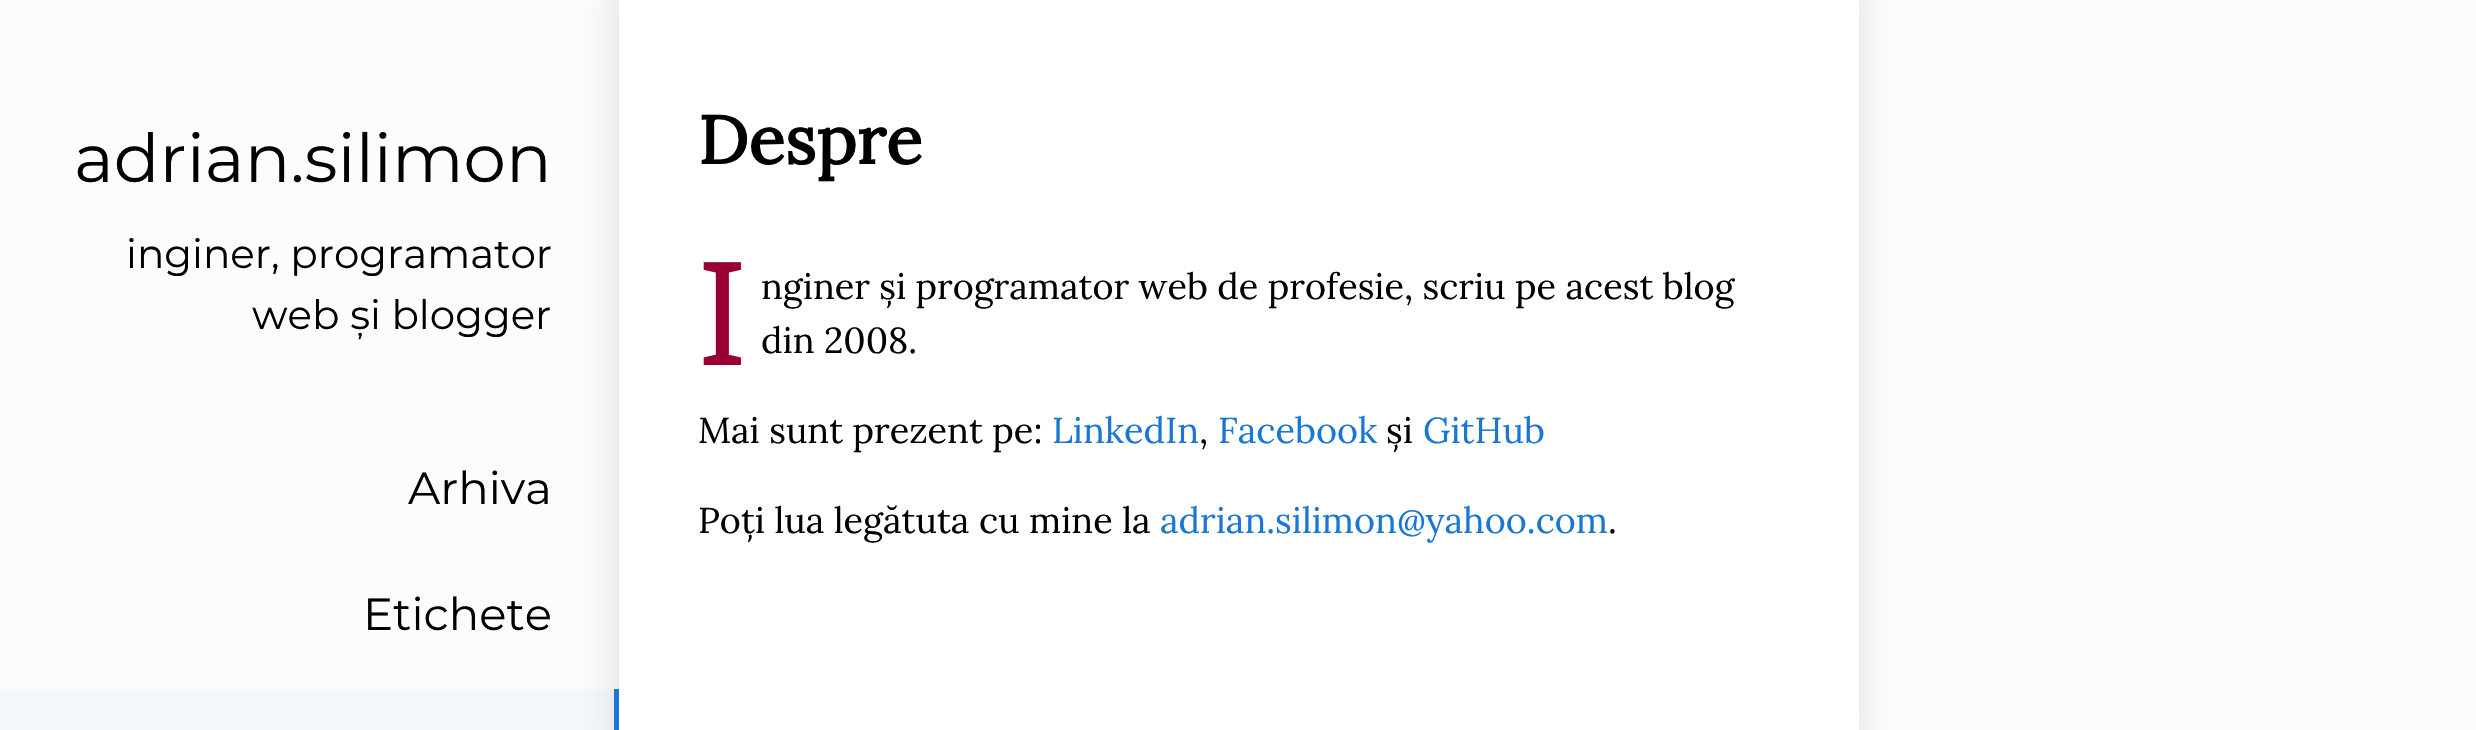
void draw(SkCanvas* canvas) {
    SkPaint paint;
    paint.setAntiAlias(true);
    auto face = [&](const char* family, int weight, float size, bool italic = false) {
        SkFontStyle style(weight, SkFontStyle::kNormal_Width,
            italic ? SkFontStyle::kItalic_Slant : SkFontStyle::kUpright_Slant);
        SkFont result(fontMgr->matchFamilyStyle(family, style), size);
        result.setSubpixel(true);
        return result;
    };
    auto write = [&](const char* s, float x, float y, const SkFont& font, SkColor color) {
        SkPaint ink(SkColor4f::FromColor(color));
        ink.setAntiAlias(true);
        canvas->drawString(s, x, y, font, ink);
    };
    auto block = [&](float x, float y, float w, float h, SkColor color) {
        SkPaint ink(SkColor4f::FromColor(color));
        ink.setAntiAlias(true);
        canvas->drawRect(SkRect::MakeXYWH(x, y, w, h), ink);
    };
    canvas->clear(SkColorSetRGB(252, 252, 252));
    auto kFont1 = face("Montserrat", 100, 67.5f);
    write("adrian.silimon", 74, 182, kFont1, SK_ColorBLACK);
    auto kFont2 = face("Montserrat", 100, 40.5f);
    write("inginer, programator", 126, 268, kFont2, SK_ColorBLACK);
    write("web și blogger", 252, 329, kFont2, SK_ColorBLACK);
    auto kFont3 = face("Montserrat", 100, 45);
    write("Arhiva", 408, 504, kFont3, SK_ColorBLACK);
    write("Etichete", 363, 630, kFont3, SK_ColorBLACK);
    paint.setColor(SkColorSetARGB(31, 0, 0, 0));
    paint.setMaskFilter(SkMaskFilter::MakeBlur(kNormal_SkBlurStyle, 18));
    canvas->drawRect(SkRect::MakeXYWH(619, -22, 1240, 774), paint);
    paint.setMaskFilter(nullptr);
    block(0, 689, 614, 41, SkColorSetARGB(8, 25, 118, 210));
    block(614, 689, 5, 41, SkColorSetRGB(25, 118, 210));
    block(619, 0, 1240, 730, SK_ColorWHITE);
    auto kFont4 = face("Lora", 700, 67.5f);
    write("Despre", 698, 164, kFont4, SK_ColorBLACK);
    auto kFont5 = face("Noto Sans", 400, 144);
    write("I", 698, 365, kFont5, SkColorSetRGB(153, 0, 51));
    auto kFont6 = face("Lora", 400, 36);
    write("nginer și programator web de profesie, scriu pe acest blog", 761, 299, kFont6, SK_ColorBLACK);
    write("din 2008.", 761, 353, kFont6, SK_ColorBLACK);
    write("Mai sunt prezent pe:", 698, 443, kFont6, SK_ColorBLACK);
    write("LinkedIn", 1052, 443, kFont6, SkColorSetRGB(25, 118, 210));
    write(",", 1199, 443, kFont6, SK_ColorBLACK);
    write("Facebook", 1218, 443, kFont6, SkColorSetRGB(25, 118, 210));
    write("și", 1386, 443, kFont6, SK_ColorBLACK);
    write("GitHub", 1423, 443, kFont6, SkColorSetRGB(25, 118, 210));
    write("Poți lua legătuta cu mine la", 698, 533, kFont6, SK_ColorBLACK);
    write("adrian.silimon@yahoo.com", 1160, 533, kFont6, SkColorSetRGB(25, 118, 210));
    write(".", 1608, 533, kFont6, SK_ColorBLACK);
}
